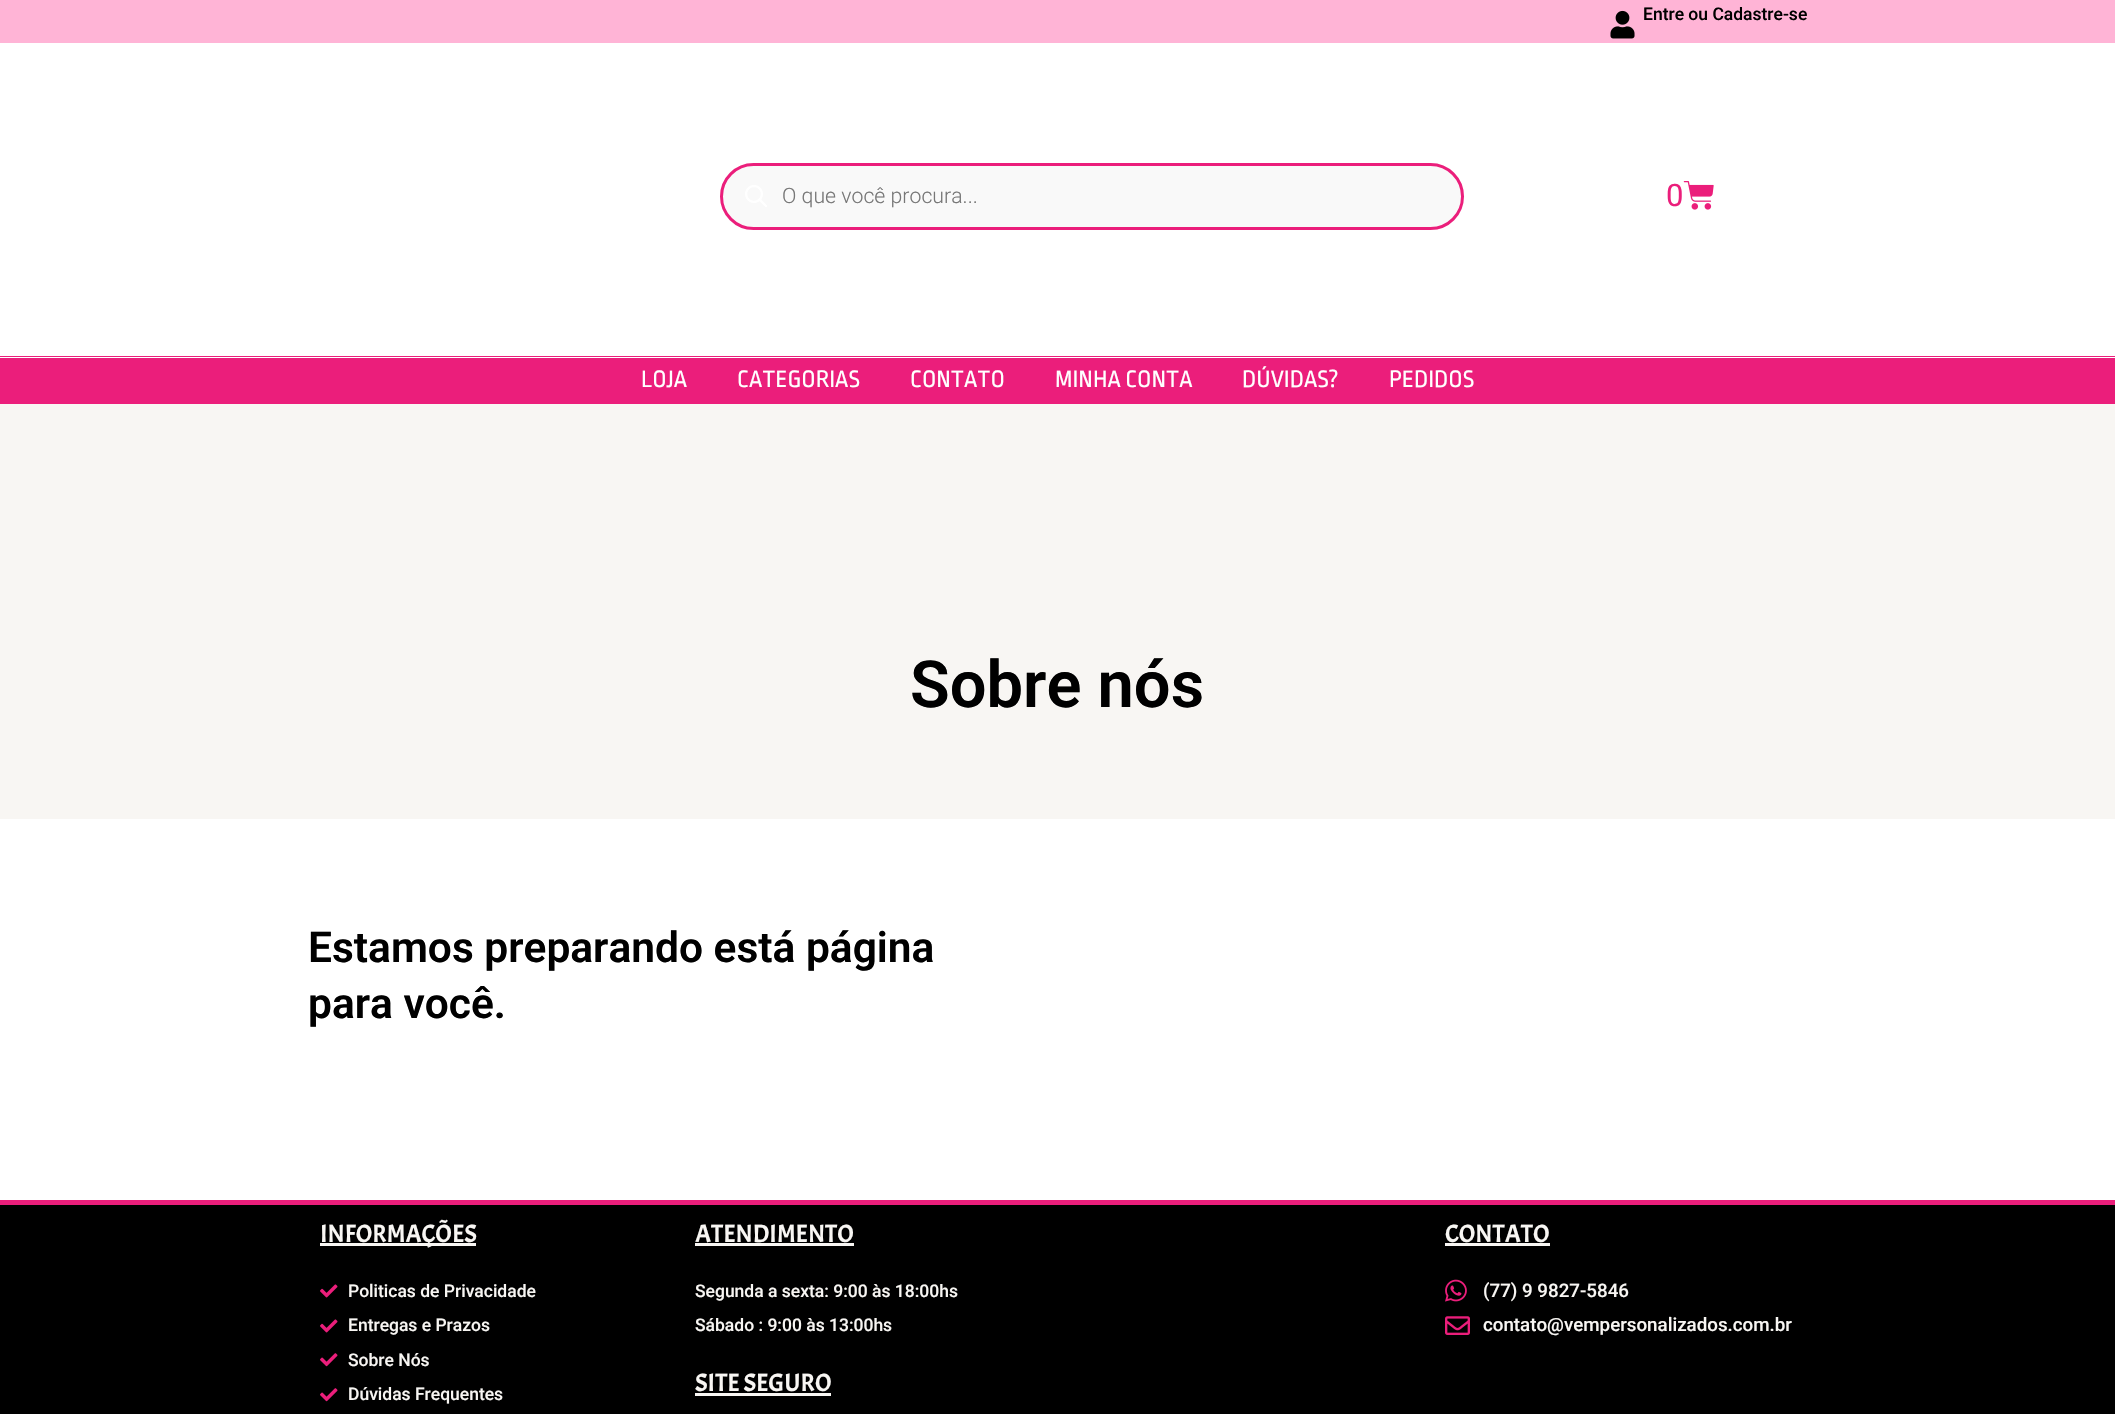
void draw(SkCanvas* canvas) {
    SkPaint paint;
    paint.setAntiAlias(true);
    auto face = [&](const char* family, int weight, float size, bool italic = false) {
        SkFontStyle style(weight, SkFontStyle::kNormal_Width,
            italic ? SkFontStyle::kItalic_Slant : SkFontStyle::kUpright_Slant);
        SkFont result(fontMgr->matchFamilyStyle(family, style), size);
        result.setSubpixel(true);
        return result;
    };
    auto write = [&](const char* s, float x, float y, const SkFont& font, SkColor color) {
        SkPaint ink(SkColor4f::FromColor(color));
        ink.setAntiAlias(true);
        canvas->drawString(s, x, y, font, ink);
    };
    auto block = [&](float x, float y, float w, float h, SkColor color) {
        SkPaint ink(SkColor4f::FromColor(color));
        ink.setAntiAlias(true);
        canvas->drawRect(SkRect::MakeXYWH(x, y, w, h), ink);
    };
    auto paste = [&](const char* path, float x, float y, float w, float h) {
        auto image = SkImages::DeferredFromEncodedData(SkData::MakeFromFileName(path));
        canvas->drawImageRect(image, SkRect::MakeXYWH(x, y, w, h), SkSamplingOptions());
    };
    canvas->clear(SK_ColorWHITE);
    block(0, 0, 2115, 43, SkColorSetRGB(255, 180, 214));
    paste("pic1.png", 1610, 10, 25, 29);
    auto kFont1 = face("Roboto", 500, 17.5f);
    write("Entre ou Cadastre-se", 1643, 20, kFont1, SK_ColorBLACK);
    paint.setColor(SkColorSetRGB(249, 249, 249));
    canvas->drawRoundRect(SkRect::MakeXYWH(721.5f, 164.5f, 741, 64), 32, 32, paint);
    paint.setStyle(SkPaint::kStroke_Style);
    paint.setStrokeWidth(3);
    paint.setColor(SkColorSetRGB(235, 30, 123));
    canvas->drawRoundRect(SkRect::MakeXYWH(721.5f, 164.5f, 741, 64), 32, 32, paint);
    paste("pic2.png", 745, 185, 22, 22);
    auto kFont2 = face("Roboto", 300, 21.25f);
    write("O que você procura...", 782, 203, kFont2, SkColorSetRGB(119, 119, 119));
    auto kFont3 = face("Roboto", 400, 31);
    write("0", 1666, 206, kFont3, SkColorSetRGB(235, 30, 123));
    paste("pic3.png", 1683, 181, 31, 29);
    block(0, 358, 2115, 46, SkColorSetRGB(235, 30, 123));
    block(0, 356, 2115, 1, SkColorSetRGB(235, 30, 123));
    auto kFont4 = face("Ropa Sans", 400, 25);
    write("LOJA", 641, 387, kFont4, SK_ColorWHITE);
    write("CATEGORIAS", 737, 387, kFont4, SK_ColorWHITE);
    write("CONTATO", 910, 387, kFont4, SK_ColorWHITE);
    write("MINHA CONTA", 1055, 387, kFont4, SK_ColorWHITE);
    write("DÚVIDAS?", 1242, 387, kFont4, SK_ColorWHITE);
    write("PEDIDOS", 1389, 387, kFont4, SK_ColorWHITE);
    block(0, 404, 2115, 415, SkColorSetRGB(248, 246, 243));
    auto kFont5 = face("Roboto", 600, 65);
    write("Sobre nós", 910, 707, kFont5, SK_ColorBLACK);
    auto kFont6 = face("Roboto", 600, 42.5f);
    write("Estamos preparando está página", 308, 962, kFont6, SK_ColorBLACK);
    write("para você.", 308, 1018, kFont6, SK_ColorBLACK);
    block(0, 1205, 2115, 209, SK_ColorBLACK);
    block(0, 1200, 2115, 5, SkColorSetRGB(235, 30, 123));
    block(320, 1243, 156, 3, SkColorSetRGB(248, 246, 243));
    auto kFont7 = face("Acme", 400, 25);
    write("INFORMAÇÕES", 320, 1242, kFont7, SkColorSetRGB(248, 246, 243));
    paste("pic4.png", 320, 1284, 18, 14);
    write("Politicas de Privacidade", 348, 1297, kFont1, SkColorSetRGB(248, 246, 243));
    paste("pic4.png", 320, 1319, 18, 14);
    write("Entregas e Prazos", 348, 1331, kFont1, SkColorSetRGB(248, 246, 243));
    paste("pic5.png", 320, 1353, 18, 14);
    write("Sobre Nós", 348, 1366, kFont1, SkColorSetRGB(248, 246, 243));
    paste("pic5.png", 320, 1388, 18, 14);
    write("Dúvidas Frequentes", 348, 1400, kFont1, SkColorSetRGB(248, 246, 243));
    write("ATENDIMENTO", 695, 1242, kFont7, SkColorSetRGB(248, 246, 243));
    block(695, 1243, 159, 3, SkColorSetRGB(248, 246, 243));
    write("Segunda a sexta: 9:00 às 18:00hs", 695, 1297, kFont1, SkColorSetRGB(248, 246, 243));
    write("Sábado : 9:00 às 13:00hs", 695, 1331, kFont1, SkColorSetRGB(248, 246, 243));
    write("SITE SEGURO", 695, 1391, kFont7, SkColorSetRGB(248, 246, 243));
    block(695, 1393, 136, 3, SkColorSetRGB(248, 246, 243));
    write("CONTATO", 1445, 1242, kFont7, SkColorSetRGB(248, 246, 243));
    block(1445, 1243, 105, 3, SkColorSetRGB(248, 246, 243));
    paste("pic6.png", 1445, 1279, 22, 23);
    auto kFont8 = face("Roboto", 500, 18.75f);
    write("(77) 9 9827-5846", 1483, 1297, kFont8, SkColorSetRGB(248, 246, 243));
    paste("pic7.png", 1445, 1316, 25, 19);
    write("contato@vempersonalizados.com.br", 1483, 1331, kFont8, SkColorSetRGB(248, 246, 243));
}
